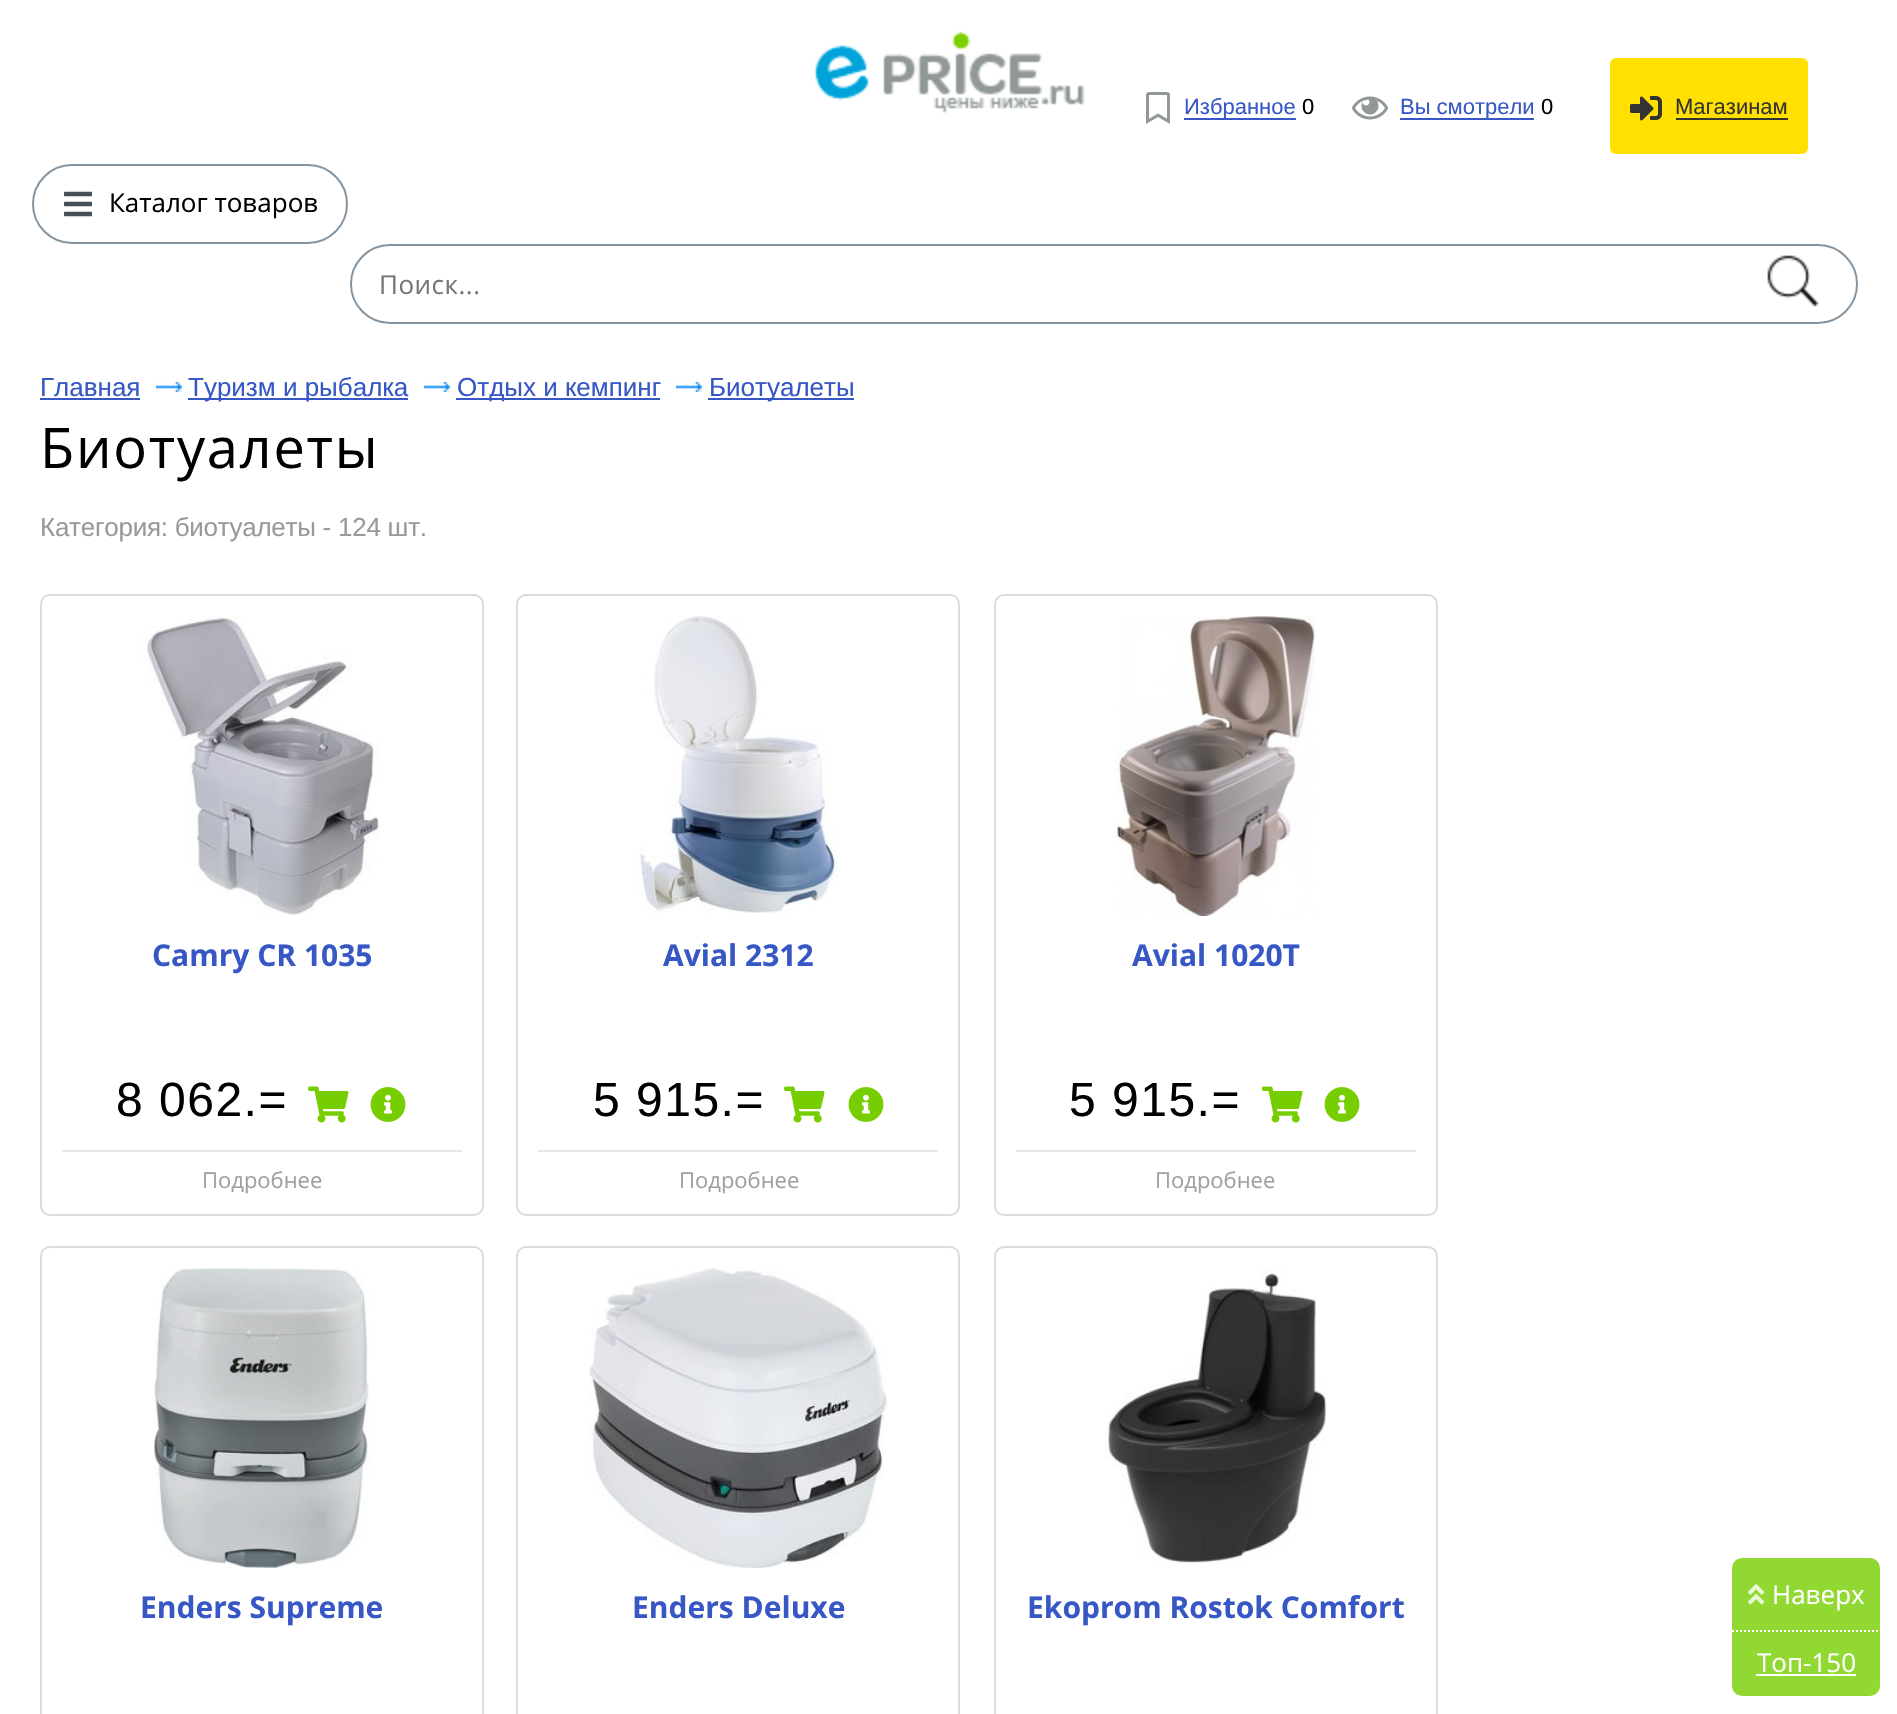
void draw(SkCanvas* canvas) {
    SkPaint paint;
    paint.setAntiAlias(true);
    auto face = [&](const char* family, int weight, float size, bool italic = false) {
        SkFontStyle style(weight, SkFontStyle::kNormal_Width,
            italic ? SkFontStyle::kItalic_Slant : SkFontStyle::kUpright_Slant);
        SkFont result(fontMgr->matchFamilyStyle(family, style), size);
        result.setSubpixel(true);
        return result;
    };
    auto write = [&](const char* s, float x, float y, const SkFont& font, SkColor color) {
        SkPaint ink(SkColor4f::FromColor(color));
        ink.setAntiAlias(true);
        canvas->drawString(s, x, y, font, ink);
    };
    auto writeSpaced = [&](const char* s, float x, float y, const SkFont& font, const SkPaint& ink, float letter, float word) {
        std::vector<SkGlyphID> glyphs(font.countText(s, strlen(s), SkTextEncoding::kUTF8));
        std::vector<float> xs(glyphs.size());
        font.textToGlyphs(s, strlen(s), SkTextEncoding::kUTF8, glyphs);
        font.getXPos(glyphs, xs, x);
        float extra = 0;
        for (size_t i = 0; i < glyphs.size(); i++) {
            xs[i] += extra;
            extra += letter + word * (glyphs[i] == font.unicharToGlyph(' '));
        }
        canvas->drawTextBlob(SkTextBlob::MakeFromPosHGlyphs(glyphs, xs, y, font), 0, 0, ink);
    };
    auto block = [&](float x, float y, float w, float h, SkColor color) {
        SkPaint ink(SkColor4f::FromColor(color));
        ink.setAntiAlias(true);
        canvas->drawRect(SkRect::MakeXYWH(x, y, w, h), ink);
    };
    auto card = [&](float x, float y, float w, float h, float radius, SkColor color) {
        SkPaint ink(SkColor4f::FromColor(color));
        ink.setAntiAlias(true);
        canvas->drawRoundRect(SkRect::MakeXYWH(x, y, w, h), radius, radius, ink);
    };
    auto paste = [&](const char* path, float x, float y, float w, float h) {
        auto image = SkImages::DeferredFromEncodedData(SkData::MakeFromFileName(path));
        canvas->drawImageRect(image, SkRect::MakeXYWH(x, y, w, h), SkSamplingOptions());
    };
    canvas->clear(SK_ColorWHITE);
    paste("pic1.png", 1146, 92, 24, 32);
    block(1184, 118, 112, 2, SkColorSetRGB(55, 87, 197));
    auto kFont1 = face("Liberation Sans", 400, 22);
    write("Избранное", 1184, 114, kFont1, SkColorSetRGB(55, 87, 197));
    write("0", 1302, 114, kFont1, SK_ColorBLACK);
    paste("pic2.png", 1352, 96, 36, 24);
    block(1400, 118, 134, 2, SkColorSetRGB(55, 87, 197));
    write("Вы смотрели", 1400, 114, kFont1, SkColorSetRGB(55, 87, 197));
    write("0", 1541, 114, kFont1, SK_ColorBLACK);
    card(1610, 58, 198, 96, 6, SkColorSetRGB(255, 224, 1));
    paste("pic3.png", 1630, 96, 32, 25);
    write("Магазинам", 1675, 114, kFont1, SkColorSetRGB(51, 51, 51));
    block(1676, 118, 112, 2, SkColorSetRGB(51, 51, 51));
    paste("pic4.png", 815, 31, 270, 82);
    paint.setStyle(SkPaint::kStroke_Style);
    paint.setStrokeWidth(2);
    paint.setColor(SkColorSetRGB(132, 148, 161));
    canvas->drawRoundRect(SkRect::MakeXYWH(33, 165, 314, 78), 39, 39, paint);
    paste("pic5.png", 64, 191, 28, 26);
    auto kFont2 = face("Open Sans", 400, 26);
    write("Каталог товаров", 109, 212, kFont2, SK_ColorBLACK);
    canvas->drawRoundRect(SkRect::MakeXYWH(351, 245, 1506, 78), 39, 39, paint);
    paint.setStyle(SkPaint::kFill_Style);
    paint.setColor(SkColorSetRGB(117, 117, 117));
    writeSpaced("Поиск...", 379, 294, kFont2, paint, 0.5f, 0);
    paste("pic6.png", 1767, 255, 52, 52);
    auto kFont3 = face("Liberation Sans", 400, 26);
    write("Главная", 40, 396, kFont3, SkColorSetRGB(55, 87, 197));
    block(40, 398, 100, 2, SkColorSetRGB(55, 87, 197));
    paste("pic7.png", 156, 382, 26, 10);
    block(188, 398, 220, 2, SkColorSetRGB(55, 87, 197));
    write("Туризм и рыбалка", 188, 396, kFont3, SkColorSetRGB(55, 87, 197));
    paste("pic7.png", 424, 382, 26, 10);
    block(456, 398, 204, 2, SkColorSetRGB(55, 87, 197));
    write("Отдых и кемпинг", 457, 396, kFont3, SkColorSetRGB(55, 87, 197));
    paste("pic7.png", 676, 382, 26, 10);
    block(708, 398, 146, 2, SkColorSetRGB(55, 87, 197));
    write("Биотуалеты", 709, 396, kFont3, SkColorSetRGB(55, 87, 197));
    auto kFont4 = face("Open Sans", 400, 56);
    paint.setColor(SK_ColorBLACK);
    writeSpaced("Биотуалеты", 40, 468, kFont4, paint, 1.75f, 0);
    paint.setColor(SkColorSetRGB(153, 153, 153));
    writeSpaced("Категория: биотуалеты - 124 шт.", 40, 536, kFont3, paint, -0.25f, 0);
    paint.setStyle(SkPaint::kStroke_Style);
    paint.setColor(SkColorSetRGB(219, 219, 219));
    canvas->drawRoundRect(SkRect::MakeXYWH(41, 595, 442, 620), 9, 9, paint);
    paste("pic8.png", 142, 616, 239, 300);
    auto kFont5 = face("Open Sans", 700, 30);
    write("Camry CR 1035", 152, 966, kFont5, SkColorSetRGB(55, 87, 197));
    auto kFont6 = face("Liberation Sans", 400, 48);
    paint.setStyle(SkPaint::kFill_Style);
    paint.setColor(SK_ColorBLACK);
    writeSpaced("8 062.=", 116, 1116, kFont6, paint, 1.5f, 0);
    paste("pic9.png", 308, 1086, 41, 37);
    paste("pic10.png", 370, 1087, 36, 35);
    block(62, 1150, 400, 2, SkColorSetRGB(230, 230, 230));
    auto kFont7 = face("Open Sans", 400, 22);
    write("Подробнее", 202, 1188, kFont7, SkColorSetRGB(160, 160, 160));
    paint.setStyle(SkPaint::kStroke_Style);
    paint.setColor(SkColorSetRGB(219, 219, 219));
    canvas->drawRoundRect(SkRect::MakeXYWH(517, 595, 442, 620), 9, 9, paint);
    paste("pic11.png", 637, 616, 201, 297);
    write("Avial 2312", 663, 966, kFont5, SkColorSetRGB(55, 87, 197));
    paint.setStyle(SkPaint::kFill_Style);
    paint.setColor(SK_ColorBLACK);
    writeSpaced("5 915.=", 593, 1116, kFont6, paint, 1.5f, 0);
    paste("pic9.png", 784, 1086, 41, 37);
    paste("pic10.png", 848, 1087, 36, 35);
    block(538, 1150, 400, 2, SkColorSetRGB(230, 230, 230));
    write("Подробнее", 679, 1188, kFont7, SkColorSetRGB(160, 160, 160));
    paint.setStyle(SkPaint::kStroke_Style);
    paint.setColor(SkColorSetRGB(219, 219, 219));
    canvas->drawRoundRect(SkRect::MakeXYWH(995, 595, 442, 620), 9, 9, paint);
    paste("pic12.png", 1114, 616, 201, 300);
    write("Avial 1020T", 1132, 966, kFont5, SkColorSetRGB(55, 87, 197));
    paint.setStyle(SkPaint::kFill_Style);
    paint.setColor(SK_ColorBLACK);
    writeSpaced("5 915.=", 1069, 1116, kFont6, paint, 1.5f, 0);
    paste("pic9.png", 1262, 1086, 41, 37);
    paste("pic10.png", 1324, 1087, 36, 35);
    block(1016, 1150, 400, 2, SkColorSetRGB(230, 230, 230));
    write("Подробнее", 1155, 1188, kFont7, SkColorSetRGB(160, 160, 160));
    paint.setStyle(SkPaint::kStroke_Style);
    paint.setColor(SkColorSetRGB(219, 219, 219));
    canvas->drawRoundRect(SkRect::MakeXYWH(41, 1247, 442, 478), 9, 9, paint);
    paste("pic13.png", 152, 1268, 218, 300);
    write("Enders Supreme", 140, 1618, kFont5, SkColorSetRGB(55, 87, 197));
    canvas->drawRoundRect(SkRect::MakeXYWH(517, 1247, 442, 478), 9, 9, paint);
    paste("pic14.png", 588, 1268, 300, 300);
    write("Enders Deluxe", 632, 1618, kFont5, SkColorSetRGB(55, 87, 197));
    canvas->drawRoundRect(SkRect::MakeXYWH(995, 1247, 442, 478), 9, 9, paint);
    paste("pic15.png", 1106, 1268, 221, 295);
    write("Ekoprom Rostok Comfort", 1027, 1618, kFont5, SkColorSetRGB(55, 87, 197));
    card(1732, 1558, 148, 138, 10, SkColorSetRGB(145, 216, 51));
    paint.setColor(SK_ColorWHITE);
    paint.setPathEffect(SkDashPathEffect::Make({{2, 2}}, 0));
    canvas->drawPath(SkPathBuilder().moveTo(1732, 1631).lineTo(1880, 1631).detach(), paint);
    paint.setPathEffect(nullptr);
    paste("pic16.png", 1748, 1584, 17, 21);
    write("Наверх", 1772, 1604, kFont2, SK_ColorWHITE);
    write("Топ-150", 1757, 1672, kFont2, SK_ColorWHITE);
    block(1756, 1674, 100, 2, SK_ColorWHITE);
}
